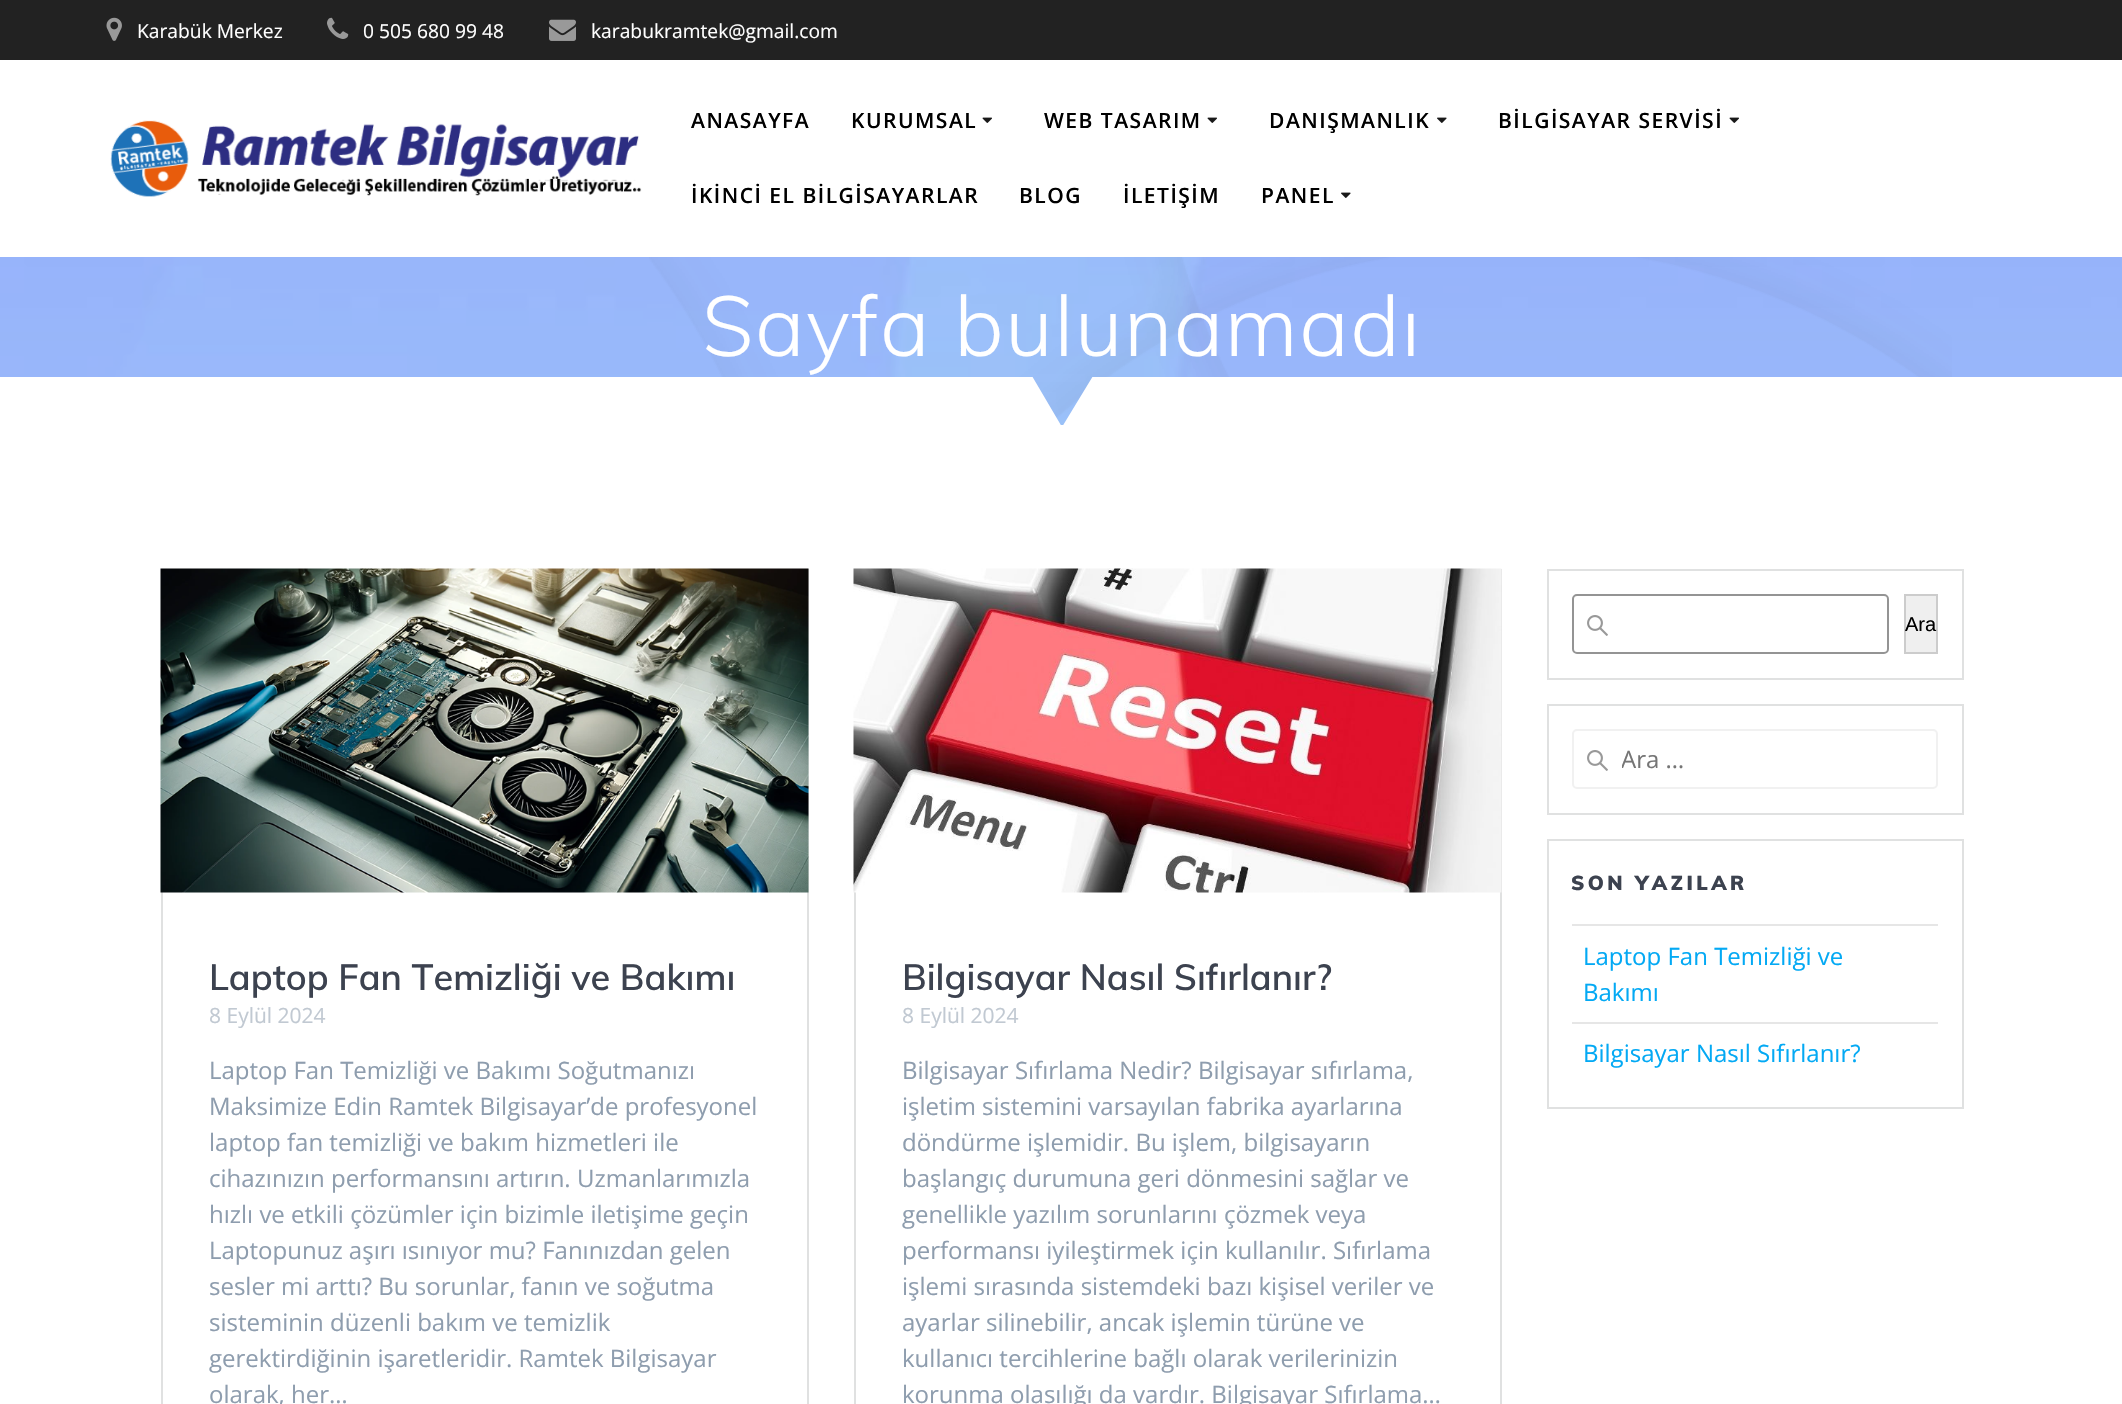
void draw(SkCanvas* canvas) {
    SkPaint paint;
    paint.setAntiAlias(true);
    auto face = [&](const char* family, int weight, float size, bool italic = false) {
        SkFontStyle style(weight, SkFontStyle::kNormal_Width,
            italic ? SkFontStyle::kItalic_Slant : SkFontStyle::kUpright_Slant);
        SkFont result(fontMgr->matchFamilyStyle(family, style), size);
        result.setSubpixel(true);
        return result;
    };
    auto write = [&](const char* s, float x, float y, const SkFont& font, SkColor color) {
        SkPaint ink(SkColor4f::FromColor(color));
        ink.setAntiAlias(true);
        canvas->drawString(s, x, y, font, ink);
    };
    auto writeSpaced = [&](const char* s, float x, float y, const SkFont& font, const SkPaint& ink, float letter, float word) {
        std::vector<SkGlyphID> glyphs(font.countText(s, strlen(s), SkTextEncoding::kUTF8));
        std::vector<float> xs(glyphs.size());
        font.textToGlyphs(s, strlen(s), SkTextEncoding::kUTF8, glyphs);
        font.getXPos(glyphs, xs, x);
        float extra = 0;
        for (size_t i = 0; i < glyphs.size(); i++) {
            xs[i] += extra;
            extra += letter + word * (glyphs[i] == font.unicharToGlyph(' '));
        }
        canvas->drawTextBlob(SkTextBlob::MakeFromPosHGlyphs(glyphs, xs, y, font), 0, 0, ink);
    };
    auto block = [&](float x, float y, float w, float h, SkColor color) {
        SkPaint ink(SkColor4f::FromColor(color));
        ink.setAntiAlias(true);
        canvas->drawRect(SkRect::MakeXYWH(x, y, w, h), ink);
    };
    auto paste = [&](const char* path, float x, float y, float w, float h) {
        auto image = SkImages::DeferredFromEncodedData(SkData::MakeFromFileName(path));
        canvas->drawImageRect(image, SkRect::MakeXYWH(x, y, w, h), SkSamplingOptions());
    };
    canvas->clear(SK_ColorWHITE);
    block(0, 0, 2122, 60, SkColorSetRGB(34, 34, 34));
    paste("pic1.png", 106, 17, 16, 24);
    auto kFont1 = face("Open Sans", 400, 19.25f);
    write("Karabük Merkez", 137, 38, kFont1, SK_ColorWHITE);
    paste("pic2.png", 327, 17, 22, 22);
    write("0 505 680 99 48", 363, 38, kFont1, SK_ColorWHITE);
    paste("pic3.png", 549, 19, 27, 22);
    write("karabukramtek@gmail.com", 591, 38, kFont1, SK_ColorWHITE);
    paste("pic4.png", 110, 120, 532, 77);
    auto kFont2 = face("Open Sans", 600, 21);
    paint.setColor(SK_ColorBLACK);
    writeSpaced("ANASAYFA", 691, 128, kFont2, paint, 1.5f, 0);
    writeSpaced("KURUMSAL", 851, 128, kFont2, paint, 1.5f, 0);
    paste("pic5.png", 982, 117, 10, 6);
    writeSpaced("WEB TASARIM", 1044, 128, kFont2, paint, 1.5f, 0);
    paste("pic5.png", 1207, 117, 10, 6);
    writeSpaced("DANIŞMANLIK", 1269, 128, kFont2, paint, 1.5f, 0);
    paste("pic6.png", 1437, 117, 10, 6);
    writeSpaced("BİLGİSAYAR SERVİSİ", 1498, 128, kFont2, paint, 1.5f, 0);
    paste("pic5.png", 1729, 117, 10, 6);
    writeSpaced("İKİNCİ EL BİLGİSAYARLAR", 691, 203, kFont2, paint, 1.5f, 0);
    writeSpaced("BLOG", 1019, 203, kFont2, paint, 1.5f, 0);
    writeSpaced("İLETİŞİM", 1123, 203, kFont2, paint, 1.5f, 0);
    writeSpaced("PANEL", 1261, 203, kFont2, paint, 1.5f, 0);
    paste("pic6.png", 1341, 192, 10, 6);
    paste("pic7.png", 0, 257, 2122, 168);
    paste("pic8.png", 649, 257, 1303, 161);
    auto kFont3 = face("Muli", 300, 84);
    paint.setColor(SK_ColorWHITE);
    writeSpaced("Sayfa bulunamadı", 702, 356, kFont3, paint, 1.4f, 0);
    canvas->save();
    canvas->clipRect(SkRect::MakeXYWH(0, 377, 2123, 51));
    canvas->drawPath(SkPathBuilder().moveTo(1093, 376).lineTo(1062, 427).lineTo(1032, 376).lineTo(0, 376).lineTo(0, 428).lineTo(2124, 428).lineTo(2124, 376).detach(), paint);
    canvas->restore();
    paint.setStyle(SkPaint::kStroke_Style);
    paint.setStrokeWidth(2);
    paint.setColor(SkColorSetRGB(224, 225, 225));
    canvas->drawRect(SkRect::MakeXYWH(1548, 570, 415, 109), paint);
    paste("pic9.png", 1587, 615, 21, 21);
    paint.setColor(SkColorSetRGB(148, 148, 148));
    canvas->drawRoundRect(SkRect::MakeXYWH(1573, 595, 315, 58), 4, 4, paint);
    paint.setStyle(SkPaint::kFill_Style);
    paint.setColor(SkColorSetRGB(239, 239, 239));
    canvas->drawRect(SkRect::MakeXYWH(1905, 595, 32, 58), paint);
    paint.setStyle(SkPaint::kStroke_Style);
    paint.setColor(SkColorSetRGB(204, 204, 204));
    canvas->drawRect(SkRect::MakeXYWH(1905, 595, 32, 58), paint);
    auto kFont4 = face("Liberation Sans", 400, 20);
    write("Ara", 1905, 631, kFont4, SK_ColorBLACK);
    paint.setColor(SkColorSetRGB(224, 225, 225));
    canvas->drawRect(SkRect::MakeXYWH(1548, 705, 415, 109), paint);
    paste("pic9.png", 1587, 750, 21, 21);
    paint.setColor(SkColorSetRGB(241, 241, 241));
    canvas->drawRoundRect(SkRect::MakeXYWH(1573, 730, 364, 58), 4, 4, paint);
    canvas->save();
    canvas->clipRect(SkRect::MakeXYWH(1622, 743, 291, 33));
    auto kFont5 = face("Open Sans", 400, 24);
    write("Ara …", 1621, 768, kFont5, SkColorSetRGB(117, 117, 117));
    canvas->restore();
    paint.setColor(SkColorSetRGB(224, 225, 225));
    canvas->drawRect(SkRect::MakeXYWH(1548, 840, 415, 268), paint);
    auto kFont6 = face("Muli", 900, 20);
    paint.setStyle(SkPaint::kFill_Style);
    paint.setColor(SkColorSetRGB(60, 66, 79));
    writeSpaced("SON YAZILAR", 1571, 890, kFont6, paint, 3.4f, 0);
    block(1572, 924, 366, 2, SkColorSetRGB(230, 230, 230));
    write("Laptop Fan Temizliği ve", 1583, 965, kFont5, SkColorSetRGB(3, 169, 244));
    write("Bakımı", 1583, 1001, kFont5, SkColorSetRGB(3, 169, 244));
    block(1572, 1022, 366, 2, SkColorSetRGB(230, 230, 230));
    write("Bilgisayar Nasıl Sıfırlanır?", 1583, 1062, kFont5, SkColorSetRGB(3, 169, 244));
    paint.setStyle(SkPaint::kStroke_Style);
    paint.setColor(SkColorSetRGB(224, 225, 225));
    canvas->drawRect(SkRect::MakeXYWH(162, 570, 646, 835), paint);
    paste("pic10.png", 160, 568, 649, 325);
    auto kFont7 = face("Muli", 600, 36);
    write("Laptop Fan Temizliği ve Bakımı", 209, 990, kFont7, SkColorSetRGB(60, 66, 79));
    auto kFont8 = face("Open Sans", 400, 21);
    write("8 Eylül 2024", 209, 1023, kFont8, SkColorSetRGB(193, 201, 210));
    write("Laptop Fan Temizliği ve Bakımı Soğutmanızı", 209, 1079, kFont5, SkColorSetRGB(142, 157, 174));
    write("Maksimize Edin Ramtek Bilgisayar’de profesyonel", 209, 1115, kFont5, SkColorSetRGB(142, 157, 174));
    write("laptop fan temizliği ve bakım hizmetleri ile", 209, 1151, kFont5, SkColorSetRGB(142, 157, 174));
    write("cihazınızın performansını artırın. Uzmanlarımızla", 209, 1187, kFont5, SkColorSetRGB(142, 157, 174));
    write("hızlı ve etkili çözümler için bizimle iletişime geçin", 209, 1223, kFont5, SkColorSetRGB(142, 157, 174));
    write("Laptopunuz aşırı ısınıyor mu? Fanınızdan gelen", 209, 1259, kFont5, SkColorSetRGB(142, 157, 174));
    write("sesler mi arttı? Bu sorunlar, fanın ve soğutma", 209, 1295, kFont5, SkColorSetRGB(142, 157, 174));
    write("sisteminin düzenli bakım ve temizlik", 209, 1331, kFont5, SkColorSetRGB(142, 157, 174));
    write("gerektirdiğinin işaretleridir. Ramtek Bilgisayar", 209, 1367, kFont5, SkColorSetRGB(142, 157, 174));
    write("olarak, her…", 209, 1403, kFont5, SkColorSetRGB(142, 157, 174));
    canvas->drawRect(SkRect::MakeXYWH(855, 570, 646, 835), paint);
    paste("pic11.png", 853, 568, 649, 325);
    write("Bilgisayar Nasıl Sıfırlanır?", 902, 990, kFont7, SkColorSetRGB(60, 66, 79));
    write("8 Eylül 2024", 902, 1023, kFont8, SkColorSetRGB(193, 201, 210));
    write("Bilgisayar Sıfırlama Nedir? Bilgisayar sıfırlama,", 902, 1079, kFont5, SkColorSetRGB(142, 157, 174));
    write("işletim sistemini varsayılan fabrika ayarlarına", 902, 1115, kFont5, SkColorSetRGB(142, 157, 174));
    write("döndürme işlemidir. Bu işlem, bilgisayarın", 902, 1151, kFont5, SkColorSetRGB(142, 157, 174));
    write("başlangıç durumuna geri dönmesini sağlar ve", 902, 1187, kFont5, SkColorSetRGB(142, 157, 174));
    write("genellikle yazılım sorunlarını çözmek veya", 902, 1223, kFont5, SkColorSetRGB(142, 157, 174));
    write("performansı iyileştirmek için kullanılır. Sıfırlama", 902, 1259, kFont5, SkColorSetRGB(142, 157, 174));
    write("işlemi sırasında sistemdeki bazı kişisel veriler ve", 902, 1295, kFont5, SkColorSetRGB(142, 157, 174));
    write("ayarlar silinebilir, ancak işlemin türüne ve", 902, 1331, kFont5, SkColorSetRGB(142, 157, 174));
    write("kullanıcı tercihlerine bağlı olarak verilerinizin", 902, 1367, kFont5, SkColorSetRGB(142, 157, 174));
    write("korunma olasılığı da vardır. Bilgisayar Sıfırlama…", 902, 1403, kFont5, SkColorSetRGB(142, 157, 174));
}
